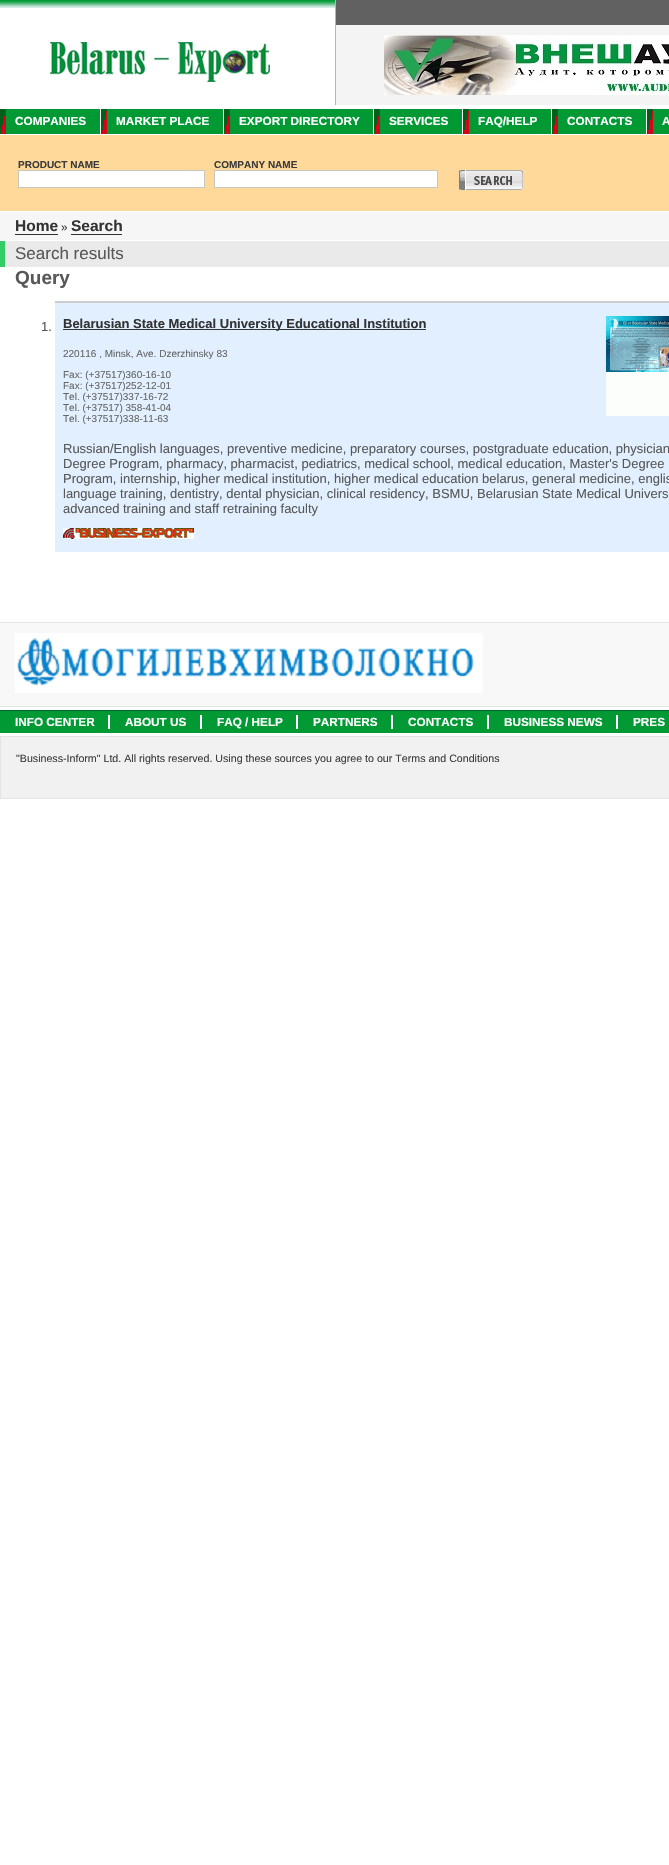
void draw(SkCanvas* canvas) {
    SkPaint paint;
    paint.setAntiAlias(true);
    auto face = [&](const char* family, int weight, float size, bool italic = false) {
        SkFontStyle style(weight, SkFontStyle::kNormal_Width,
            italic ? SkFontStyle::kItalic_Slant : SkFontStyle::kUpright_Slant);
        SkFont result(fontMgr->matchFamilyStyle(family, style), size);
        result.setSubpixel(true);
        return result;
    };
    auto write = [&](const char* s, float x, float y, const SkFont& font, SkColor color) {
        SkPaint ink(SkColor4f::FromColor(color));
        ink.setAntiAlias(true);
        canvas->drawString(s, x, y, font, ink);
    };
    auto block = [&](float x, float y, float w, float h, SkColor color) {
        SkPaint ink(SkColor4f::FromColor(color));
        ink.setAntiAlias(true);
        canvas->drawRect(SkRect::MakeXYWH(x, y, w, h), ink);
    };
    auto paste = [&](const char* path, float x, float y, float w, float h) {
        auto image = SkImages::DeferredFromEncodedData(SkData::MakeFromFileName(path));
        canvas->drawImageRect(image, SkRect::MakeXYWH(x, y, w, h), SkSamplingOptions());
    };
    canvas->clear(SK_ColorWHITE);
    paste("pic1.png", 0, 0, 335, 8);
    paste("pic2.png", 50, 42, 220, 40);
    block(336, 0, 333, 25, SkColorSetRGB(97, 97, 97));
    block(335, 0, 1, 105, SkColorSetRGB(180, 180, 180));
    block(336, 25, 333, 80, SkColorSetRGB(244, 244, 244));
    paste("pic3.png", 384, 35, 285, 60);
    block(6, 109, 663, 25, SkColorSetRGB(0, 153, 51));
    paste("pic4.png", 0, 109, 6, 25);
    block(100, 109, 1, 25, SK_ColorWHITE);
    auto kFont1 = face("Liberation Sans", 700, 11.75f);
    write("COMPANIES", 15, 125, kFont1, SK_ColorWHITE);
    paste("pic4.png", 101, 109, 6, 25);
    block(223, 109, 1, 25, SK_ColorWHITE);
    write("MARKET PLACE", 116, 125, kFont1, SK_ColorWHITE);
    paste("pic4.png", 224, 109, 6, 25);
    block(373, 109, 1, 25, SK_ColorWHITE);
    write("EXPORT DIRECTORY", 239, 125, kFont1, SK_ColorWHITE);
    paste("pic4.png", 374, 109, 6, 25);
    block(462, 109, 1, 25, SK_ColorWHITE);
    write("SERVICES", 389, 125, kFont1, SK_ColorWHITE);
    paste("pic4.png", 463, 109, 6, 25);
    block(551, 109, 1, 25, SK_ColorWHITE);
    write("FAQ/HELP", 478, 125, kFont1, SK_ColorWHITE);
    paste("pic4.png", 552, 109, 6, 25);
    block(646, 109, 1, 25, SK_ColorWHITE);
    write("CONTACTS", 567, 125, kFont1, SK_ColorWHITE);
    paste("pic4.png", 647, 109, 6, 25);
    write("A", 662, 125, kFont1, SK_ColorWHITE);
    block(0, 135, 669, 76, SkColorSetRGB(254, 217, 153));
    auto kFont2 = face("Liberation Sans", 700, 10);
    write("PRODUCT NAME", 18, 168, kFont2, SkColorSetRGB(60, 60, 60));
    paint.setColor(SK_ColorWHITE);
    canvas->drawRect(SkRect::MakeXYWH(18.5f, 170.5f, 186, 17), paint);
    paint.setStyle(SkPaint::kStroke_Style);
    paint.setStrokeWidth(1);
    paint.setColor(SkColorSetRGB(200, 199, 190));
    canvas->drawRect(SkRect::MakeXYWH(18.5f, 170.5f, 186, 17), paint);
    write("COMPANY NAME", 214, 168, kFont2, SkColorSetRGB(60, 60, 60));
    paint.setStyle(SkPaint::kFill_Style);
    paint.setColor(SK_ColorWHITE);
    canvas->drawRect(SkRect::MakeXYWH(214.5f, 170.5f, 223, 17), paint);
    paint.setStyle(SkPaint::kStroke_Style);
    paint.setColor(SkColorSetRGB(200, 199, 190));
    canvas->drawRect(SkRect::MakeXYWH(214.5f, 170.5f, 223, 17), paint);
    paste("pic5.png", 459, 170, 64, 20);
    block(0, 212, 669, 28, SkColorSetRGB(246, 246, 246));
    auto kFont3 = face("Liberation Sans", 700, 15.5f);
    write("Home", 15, 231, kFont3, SkColorSetRGB(51, 51, 51));
    block(15, 234, 43, 1, SkColorSetRGB(51, 51, 51));
    auto kFont4 = face("Liberation Sans", 400, 11.75f);
    write("»", 61, 231, kFont4, SkColorSetRGB(60, 60, 60));
    write("Search", 71, 231, kFont3, SkColorSetRGB(51, 51, 51));
    block(71, 234, 51, 1, SkColorSetRGB(51, 51, 51));
    block(5, 241, 664, 26, SkColorSetRGB(234, 234, 234));
    block(0, 241, 5, 26, SkColorSetRGB(51, 204, 102));
    auto kFont5 = face("Liberation Sans", 400, 17);
    write("Search results", 15, 259, kFont5, SkColorSetRGB(88, 88, 88));
    auto kFont6 = face("Liberation Sans", 700, 19);
    write("Query", 15, 284, kFont6, SkColorSetRGB(88, 88, 88));
    block(55, 303, 614, 249, SkColorSetRGB(225, 239, 255));
    block(55, 301, 614, 2, SkColorSetRGB(204, 204, 204));
    auto kFont7 = face("Liberation Sans", 400, 13);
    write("1.", 41, 331, kFont7, SkColorSetRGB(88, 88, 88));
    block(63, 329, 363, 1, SkColorSetRGB(51, 51, 51));
    auto kFont8 = face("Liberation Sans", 700, 13);
    write("Belarusian State Medical University Educational Institution", 63, 328, kFont8, SkColorSetRGB(51, 51, 51));
    paste("pic6.png", 606, 316, 63, 100);
    auto kFont9 = face("Liberation Sans", 400, 10);
    write("220116 , Minsk, Ave. Dzerzhinsky 83", 63, 357, kFont9, SkColorSetRGB(102, 102, 102));
    write("Fax: (+37517)360-16-10", 63, 378, kFont9, SkColorSetRGB(102, 102, 102));
    write("Fax: (+37517)252-12-01", 63, 389, kFont9, SkColorSetRGB(102, 102, 102));
    write("Tel. (+37517)337-16-72", 63, 400, kFont9, SkColorSetRGB(102, 102, 102));
    write("Tel. (+37517) 358-41-04", 63, 411, kFont9, SkColorSetRGB(102, 102, 102));
    write("Tel. (+37517)338-11-63", 63, 422, kFont9, SkColorSetRGB(102, 102, 102));
    write("Russian/English languages, preventive medicine, preparatory courses, postgraduate education, physician", 63, 453, kFont7, SkColorSetRGB(88, 88, 88));
    write("Degree Program, pharmacy, pharmacist, pediatrics, medical school, medical education, Master's Degree", 63, 468, kFont7, SkColorSetRGB(88, 88, 88));
    write("Program, internship, higher medical institution, higher medical education belarus, general medicine, englis", 63, 483, kFont7, SkColorSetRGB(88, 88, 88));
    write("language training, dentistry, dental physician, clinical residency, BSMU, Belarusian State Medical Univers", 63, 498, kFont7, SkColorSetRGB(88, 88, 88));
    write("advanced training and staff retraining faculty", 63, 513, kFont7, SkColorSetRGB(88, 88, 88));
    paste("pic7.png", 63, 528, 131, 11);
    block(0, 623, 669, 83, SkColorSetRGB(248, 248, 248));
    block(0, 622, 669, 1, SkColorSetRGB(227, 227, 227));
    block(0, 706, 669, 1, SkColorSetRGB(227, 227, 227));
    paste("pic8.png", 15, 633, 468, 60);
    block(0, 711, 669, 22, SkColorSetRGB(0, 153, 51));
    block(0, 710, 669, 1, SkColorSetRGB(0, 102, 51));
    write("INFO CENTER", 15, 726, kFont1, SK_ColorWHITE);
    block(108, 715, 2, 14, SK_ColorWHITE);
    write("ABOUT US", 125, 726, kFont1, SK_ColorWHITE);
    block(200, 715, 2, 14, SK_ColorWHITE);
    write("FAQ / HELP", 217, 726, kFont1, SK_ColorWHITE);
    block(296, 715, 2, 14, SK_ColorWHITE);
    write("PARTNERS", 313, 726, kFont1, SK_ColorWHITE);
    block(391, 715, 2, 14, SK_ColorWHITE);
    write("CONTACTS", 408, 726, kFont1, SK_ColorWHITE);
    block(487, 715, 2, 14, SK_ColorWHITE);
    write("BUSINESS NEWS", 504, 726, kFont1, SK_ColorWHITE);
    block(616, 715, 2, 14, SK_ColorWHITE);
    write("PRES", 633, 726, kFont1, SK_ColorWHITE);
    paint.setStyle(SkPaint::kFill_Style);
    paint.setColor(SkColorSetRGB(241, 241, 241));
    canvas->drawRect(SkRect::MakeXYWH(0.5f, 736.5f, 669, 62), paint);
    paint.setStyle(SkPaint::kStroke_Style);
    paint.setColor(SkColorSetRGB(227, 227, 227));
    canvas->drawRect(SkRect::MakeXYWH(0.5f, 736.5f, 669, 62), paint);
    auto kFont10 = face("Liberation Sans", 400, 10.65f);
    write("\"Business-Inform\" Ltd. All rights reserved. Using these sources you agree to our Terms and Conditions", 16, 762, kFont10, SkColorSetRGB(60, 60, 60));
}
